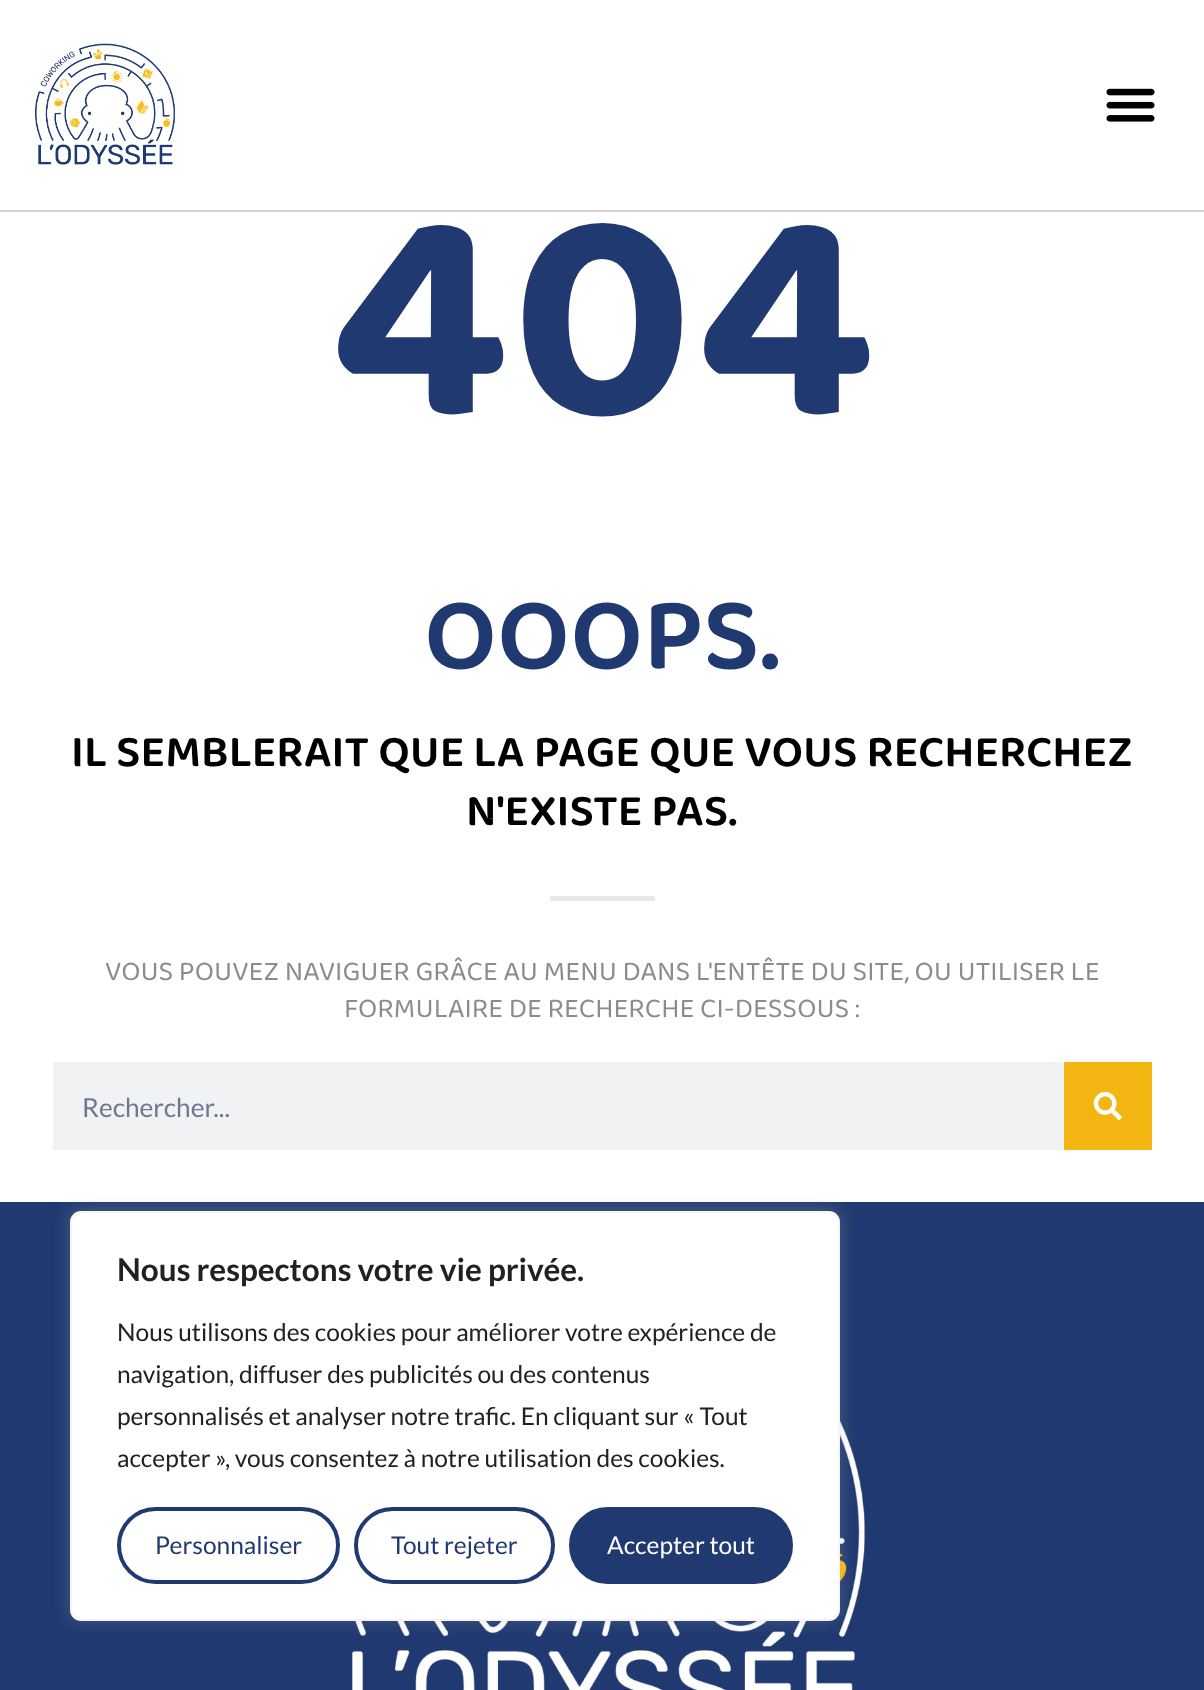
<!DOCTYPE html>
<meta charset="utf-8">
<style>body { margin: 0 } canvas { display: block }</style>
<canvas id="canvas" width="1204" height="1690"></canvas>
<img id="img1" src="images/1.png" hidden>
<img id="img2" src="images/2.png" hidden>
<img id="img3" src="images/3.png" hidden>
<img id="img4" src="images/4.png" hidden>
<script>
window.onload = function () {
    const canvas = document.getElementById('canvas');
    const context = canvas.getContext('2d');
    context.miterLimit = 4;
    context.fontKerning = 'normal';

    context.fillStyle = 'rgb(255, 255, 255)';
    context.fillRect(0, 0, 1204, 1690);
    context.fillStyle = 'rgb(211, 211, 211)';
    context.fillRect(0, 210, 1204, 2);
    context.drawImage(document.getElementById('img1'), 35, 43, 140, 122);
    context.drawImage(document.getElementById('img2'), 1106, 88, 49, 34);
    context.fillStyle = 'rgb(232, 232, 232)';
    context.fillRect(550, 896, 105, 5);
    context.fillStyle = 'rgb(241, 242, 243)';
    context.fillRect(53, 1062, 1011, 88);
    context.fillStyle = 'rgb(243, 181, 17)';
    context.fillRect(1064, 1062, 88, 88);
    context.drawImage(document.getElementById('img3'), 1093, 1092, 29, 28);
    context.fillStyle = 'rgb(32, 58, 113)';
    context.fillRect(0, 1202, 1204, 488);
    context.drawImage(document.getElementById('img4'), 352, 1420, 513, 270);
    context.fillStyle = 'rgba(172, 171, 171, 0.3)';
    context.filter = 'blur(9px)';
    context.beginPath();
    context.roundRect(70, 1209, 770, 410, 11);
    context.fill();
    context.filter = 'none';
    context.fillStyle = 'rgb(255, 255, 255)';
    context.beginPath();
    context.roundRect(71, 1212, 768, 408, 10);
    context.fill();
    context.strokeStyle = 'rgb(244, 244, 244)';
    context.lineWidth = 2;
    context.stroke();
    context.beginPath();
    context.roundRect(119, 1509, 219, 73, 36.5);
    context.strokeStyle = 'rgb(32, 58, 113)';
    context.lineWidth = 4;
    context.stroke();
    context.beginPath();
    context.roundRect(356, 1509, 197, 73, 36.5);
    context.stroke();
    context.fillStyle = 'rgb(32, 58, 113)';
    context.beginPath();
    context.roundRect(571, 1509, 220, 73, 36.5);
    context.fill();
    context.stroke();
    context.font = 'bold 304px "Baloo 2"';
    context.fillText('404', 329, 412);
    context.font = '600 105px "Baloo 2"';
    context.fillText('OOOPS.', 424, 668);
    context.font = '600 45.5px "Baloo 2"';
    context.fillStyle = 'rgb(0, 0, 0)';
    context.fillText('IL SEMBLERAIT QUE LA PAGE QUE VOUS RECHERCHEZ', 71, 766);
    context.fillText('N\'EXISTE PAS.', 466, 825);
    context.font = '28px "Baloo 2"';
    context.fillStyle = 'rgb(140, 140, 140)';
    context.fillText('VOUS POUVEZ NAVIGUER GRÂCE AU MENU DANS L\'ENTÊTE DU SITE, OU UTILISER LE', 105, 980);
    context.fillText('FORMULAIRE DE RECHERCHE CI-DESSOUS :', 344, 1017);
    context.font = '26.25px Lato';
    context.fillStyle = 'rgb(111, 119, 146)';
    context.fillText('Rechercher...', 82, 1117);
    context.font = 'bold 31.5px Lato';
    context.fillStyle = 'rgb(33, 33, 33)';
    context.fillText('Nous respectons votre vie privée.', 117, 1281);
    context.font = '24.5px Lato';
    context.fillText('Nous utilisons des cookies pour améliorer votre expérience de', 117, 1341);
    context.fillText('navigation, diffuser des publicités ou des contenus', 117, 1383);
    context.fillText('personnalisés et analyser notre trafic. En cliquant sur « Tout', 117, 1425);
    context.fillText('accepter », vous consentez à notre utilisation des cookies.', 117, 1467);
    context.fillStyle = 'rgb(32, 58, 113)';
    context.fillText('Personnaliser', 155, 1554);
    context.fillText('Tout rejeter', 391, 1554);
    context.fillStyle = 'rgb(255, 255, 255)';
    context.fillText('Accepter tout', 607, 1554);
};
</script>
